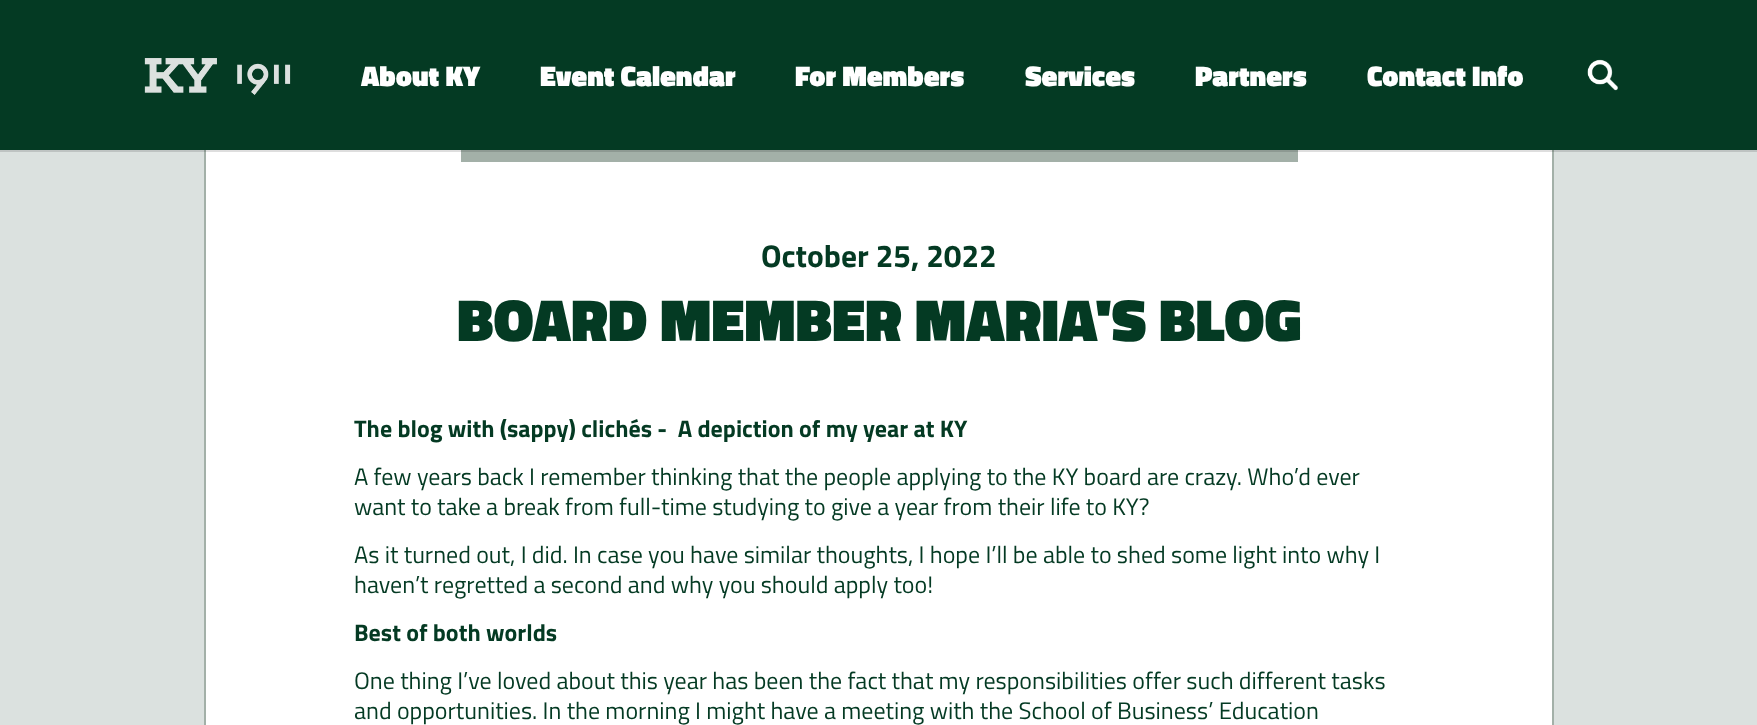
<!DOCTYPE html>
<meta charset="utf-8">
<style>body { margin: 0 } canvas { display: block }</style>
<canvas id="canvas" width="1757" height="725"></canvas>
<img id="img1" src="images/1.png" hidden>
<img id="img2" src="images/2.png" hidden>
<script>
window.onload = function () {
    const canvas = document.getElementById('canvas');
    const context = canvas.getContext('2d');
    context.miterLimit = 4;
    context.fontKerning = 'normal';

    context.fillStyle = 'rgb(219, 225, 223)';
    context.fillRect(0, 0, 1757, 725);
    context.fillStyle = 'rgb(255, 255, 255)';
    context.fillRect(206, 150, 1346, 575);
    context.strokeStyle = 'rgb(163, 176, 168)';
    context.lineWidth = 2;
    context.strokeRect(205, -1, 1348, 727);
    context.lineWidth = 60;
    context.strokeRect(491, -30, 777, 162);
    context.fillStyle = 'rgba(0, 0, 0, 0.13)';
    context.fillRect(0, 150, 1757, 2);
    context.fillStyle = 'rgb(4, 58, 35)';
    context.fillRect(0, 0, 1757, 150);
    context.drawImage(document.getElementById('img1'), 144, 58, 147, 37);
    context.drawImage(document.getElementById('img2'), 1587, 59, 31, 32);
    context.font = '900 28.75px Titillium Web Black';
    context.fillStyle = 'rgb(255, 255, 255)';
    context.fillText('About KY', 361, 86);
    context.fillText('Event Calendar', 540, 86);
    context.fillText('For Members', 795, 86);
    context.fillText('Services', 1025, 86);
    context.fillText('Partners', 1195, 86);
    context.fillText('Contact Info', 1367, 86);
    context.font = 'bold 31.5px Titillium Web';
    context.fillStyle = 'rgb(4, 58, 35)';
    context.fillText('October 25, 2022', 761, 267);
    context.font = '900 60px Titillium Web Black';
    context.fillText('BOARD MEMBER MARIA\'S BLOG', 457, 341);
    context.font = 'bold 24px Titillium Web';
    context.fillText('The blog with (sappy) clichés -  A depiction of my year at KY', 354, 437);
    context.font = '24px Titillium Web';
    context.fillText('A few years back I remember thinking that the people applying to the KY board are crazy. Who’d ever', 354, 485);
    context.fillText('want to take a break from full-time studying to give a year from their life to KY?', 354, 515);
    context.fillText('As it turned out, I did. In case you have similar thoughts, I hope I’ll be able to shed some light into why I', 354, 563);
    context.fillText('haven’t regretted a second and why you should apply too!', 354, 593);
    context.font = 'bold 24px Titillium Web';
    context.fillText('Best of both worlds', 354, 641);
    context.font = '24px Titillium Web';
    context.fillText('One thing I’ve loved about this year has been the fact that my responsibilities offer such different tasks', 354, 689);
    context.fillText('and opportunities. In the morning I might have a meeting with the School of Business’ Education', 354, 719);
};
</script>
